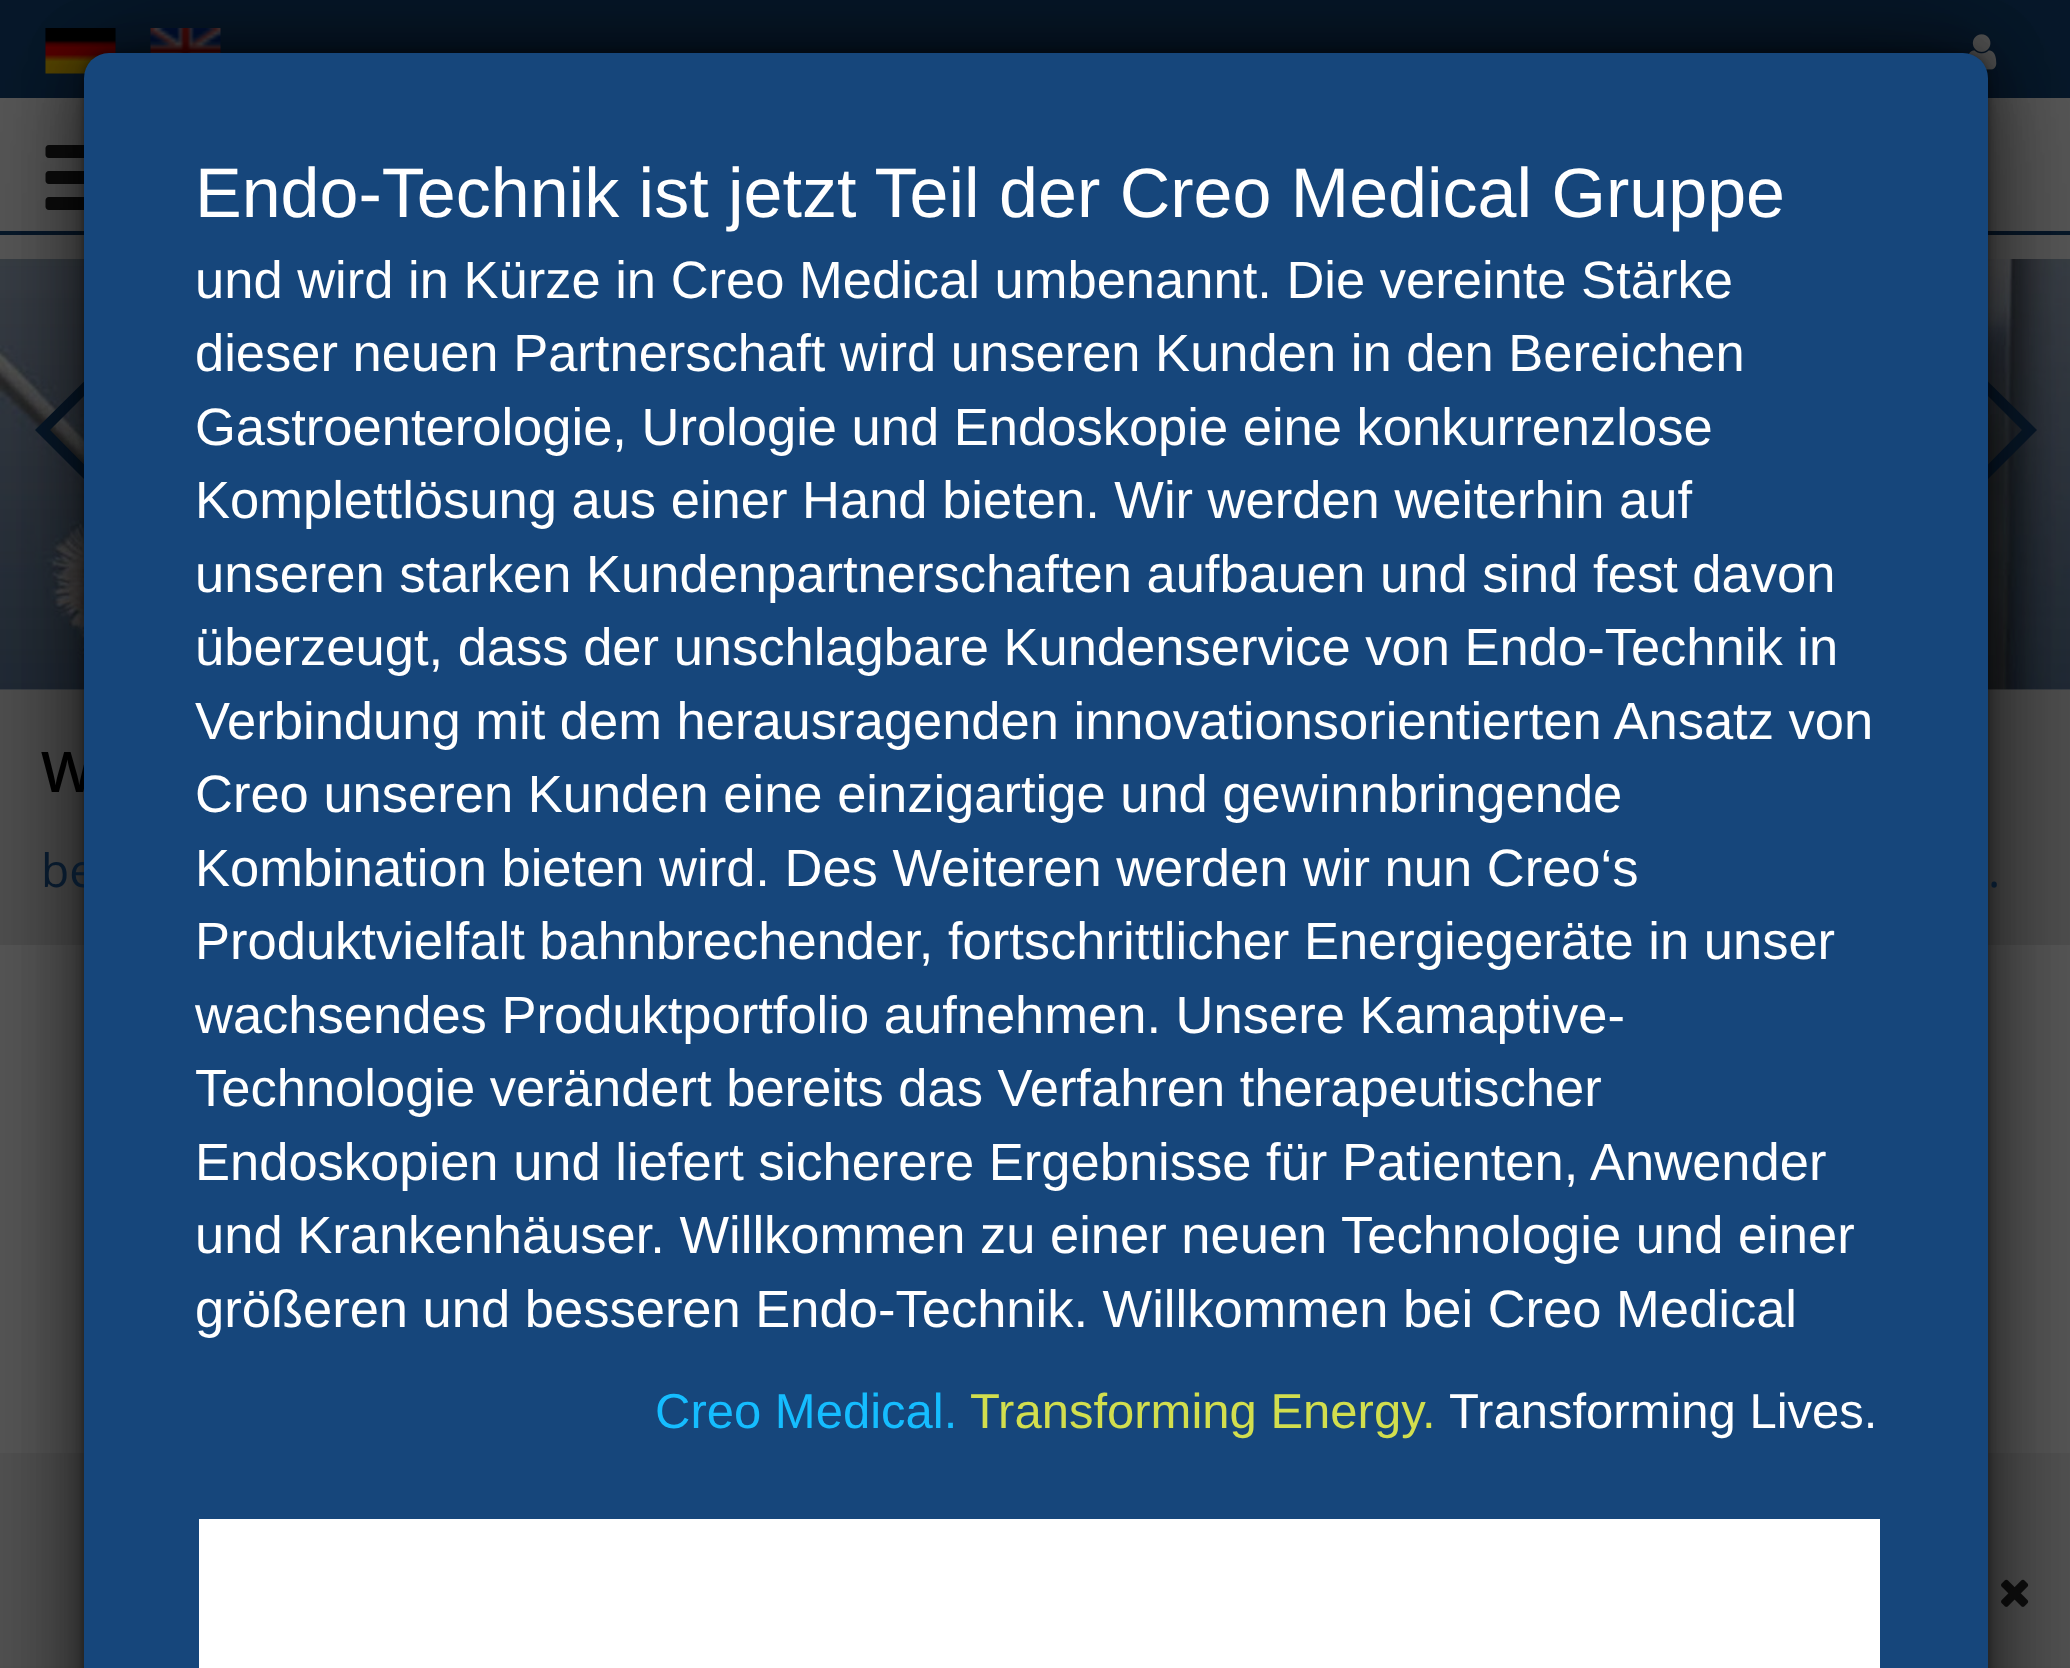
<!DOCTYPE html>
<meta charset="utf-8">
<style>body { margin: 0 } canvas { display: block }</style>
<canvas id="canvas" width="2070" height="1668"></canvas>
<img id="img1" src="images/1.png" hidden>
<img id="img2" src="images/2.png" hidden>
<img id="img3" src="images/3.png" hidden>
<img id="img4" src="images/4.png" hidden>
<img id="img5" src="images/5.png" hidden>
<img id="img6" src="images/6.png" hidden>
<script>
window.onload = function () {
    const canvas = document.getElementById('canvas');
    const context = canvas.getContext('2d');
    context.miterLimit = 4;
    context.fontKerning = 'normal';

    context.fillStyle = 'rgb(89, 89, 89)';
    context.fillRect(0, 0, 2070, 1668);
    context.fillStyle = 'rgb(84, 84, 84)';
    context.fillRect(0, 1453, 2070, 213);
    context.fillStyle = 'rgb(83, 83, 83)';
    context.fillRect(0, 1666, 2070, 2);
    context.fillStyle = 'rgb(8, 25, 43)';
    context.fillRect(0, 0, 2070, 98);
    context.drawImage(document.getElementById('img1'), 45, 28, 71, 46);
    context.drawImage(document.getElementById('img2'), 150, 28, 71, 25);
    context.drawImage(document.getElementById('img3'), 1968, 34, 29, 36);
    context.fillRect(0, 231, 2070, 4);
    context.drawImage(document.getElementById('img4'), 45, 145, 39, 65);
    context.drawImage(document.getElementById('img5'), 0, 259, 2070, 431);
    context.beginPath();
    context.moveTo(35, 430);
    context.lineTo(112, 354);
    context.lineTo(119, 361);
    context.lineTo(50, 430);
    context.lineTo(119, 500);
    context.lineTo(112, 507);
    context.closePath();
    context.fill();
    context.beginPath();
    context.moveTo(2037, 430);
    context.lineTo(1960, 507);
    context.lineTo(1953, 500);
    context.lineTo(2022, 430);
    context.lineTo(1953, 361);
    context.lineTo(1960, 354);
    context.closePath();
    context.fill();
    context.fillStyle = 'rgb(81, 81, 81)';
    context.fillRect(0, 690, 2070, 255);
    context.drawImage(document.getElementById('img6'), 2001, 1579, 28, 28);
    context.fillStyle = 'rgba(0, 0, 0, 0.2)';
    context.filter = 'blur(84px)';
    context.beginPath();
    context.roundRect(84, 53, 1904, 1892, 25);
    context.fill();
    context.filter = 'none';
    context.fillStyle = 'rgba(0, 0, 0, 0.4)';
    context.filter = 'blur(56px)';
    context.beginPath();
    context.roundRect(84, 53, 1904, 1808, 25);
    context.fill();
    context.filter = 'none';
    context.filter = 'blur(28px)';
    context.beginPath();
    context.roundRect(84, 53, 1904, 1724, 25);
    context.fill();
    context.filter = 'none';
    context.filter = 'blur(5px)';
    context.beginPath();
    context.roundRect(84, 53, 1904, 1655, 25);
    context.fill();
    context.filter = 'none';
    context.font = '600 56px Open Sans';
    context.fillStyle = 'rgb(0, 0, 0)';
    context.fillText('W', 41, 792);
    context.font = '46px Open Sans';
    context.fillStyle = 'rgb(8, 25, 43)';
    context.fillText('be', 41, 887);
    context.fillStyle = 'rgb(22, 70, 123)';
    context.beginPath();
    context.roundRect(84, 53, 1904, 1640, 25);
    context.fill();
    context.fillStyle = 'rgb(255, 255, 255)';
    context.fillRect(199, 1519, 1681, 149);
    context.font = '49px Liberation Sans';
    context.fillText('Transforming Lives.', 1449, 1428);
    context.fillStyle = 'rgb(210, 222, 78)';
    context.fillText('Transforming Energy.', 970, 1428);
    context.fillStyle = 'rgb(21, 189, 255)';
    context.fillText('Creo Medical.', 655, 1428);
    context.font = '52.5px Liberation Sans';
    context.fillStyle = 'rgb(255, 255, 255)';
    context.fillText('größeren und besseren Endo-Technik. Willkommen bei Creo Medical', 195, 1327);
    context.fillText('und Krankenhäuser. Willkommen zu einer neuen Technologie und einer', 195, 1253);
    context.fillText('Endoskopien und liefert sicherere Ergebnisse für Patienten, Anwender', 195, 1180);
    context.fillText('Technologie verändert bereits das Verfahren therapeutischer', 195, 1106);
    context.fillText('wachsendes Produktportfolio aufnehmen. Unsere Kamaptive-', 195, 1033);
    context.fillText('Produktvielfalt bahnbrechender, fortschrittlicher Energiegeräte in unser', 195, 959);
    context.fillText('Kombination bieten wird. Des Weiteren werden wir nun Creo‘s', 195, 886);
    context.fillText('Creo unseren Kunden eine einzigartige und gewinnbringende', 195, 812);
    context.fillText('Verbindung mit dem herausragenden innovationsorientierten Ansatz von', 195, 739);
    context.fillText('überzeugt, dass der unschlagbare Kundenservice von Endo-Technik in', 195, 665);
    context.fillText('unseren starken Kundenpartnerschaften aufbauen und sind fest davon', 195, 592);
    context.fillText('Komplettlösung aus einer Hand bieten. Wir werden weiterhin auf', 195, 518);
    context.fillText('Gastroenterologie, Urologie und Endoskopie eine konkurrenzlose', 195, 445);
    context.fillText('dieser neuen Partnerschaft wird unseren Kunden in den Bereichen', 195, 371);
    context.fillText('und wird in Kürze in Creo Medical umbenannt. Die vereinte Stärke', 195, 298);
    context.font = '70px Liberation Sans';
    context.fillText('Endo-Technik ist jetzt Teil der Creo Medical Gruppe', 195, 217);
    context.font = '46px Open Sans';
    context.fillStyle = 'rgb(8, 25, 43)';
    context.fillText('.', 1988, 887);
};
</script>
